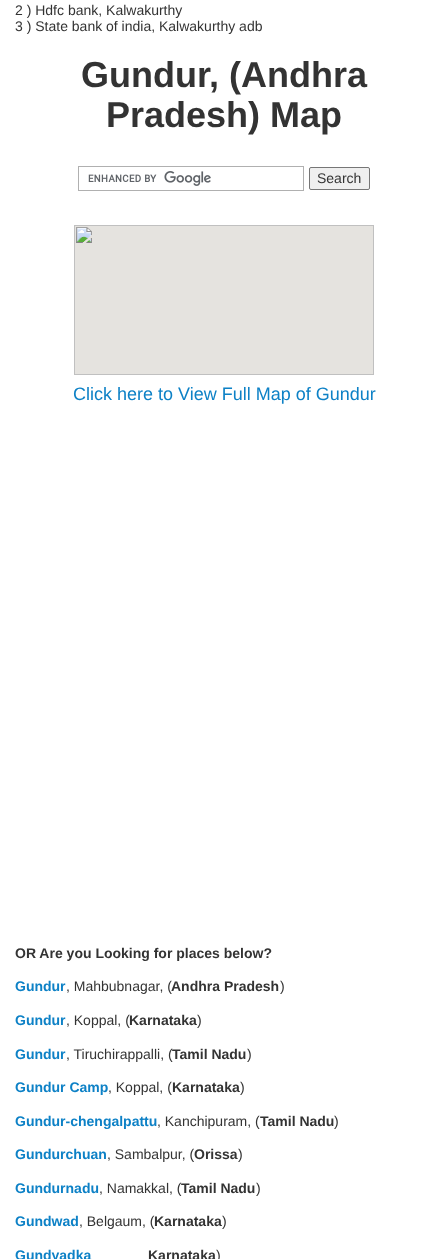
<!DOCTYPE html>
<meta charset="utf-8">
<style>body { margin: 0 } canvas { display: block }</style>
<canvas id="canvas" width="448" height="1259"></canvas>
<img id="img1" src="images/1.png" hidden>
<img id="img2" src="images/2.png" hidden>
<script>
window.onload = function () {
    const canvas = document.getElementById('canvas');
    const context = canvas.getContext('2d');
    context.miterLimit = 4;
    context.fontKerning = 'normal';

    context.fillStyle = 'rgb(255, 255, 255)';
    context.fillRect(0, 0, 448, 1259);
    context.drawImage(document.getElementById('img1'), 88, 171, 123, 15);
    context.strokeStyle = 'rgb(176, 176, 176)';
    context.strokeRect(78.5, 166.5, 225, 24);
    context.fillStyle = 'rgb(239, 239, 239)';
    context.beginPath();
    context.roundRect(309.5, 167.5, 60, 22, 1.5);
    context.fill();
    context.strokeStyle = 'rgb(118, 118, 118)';
    context.stroke();
    context.drawImage(document.getElementById('img2'), 74, 225, 300, 150);
    context.font = '14px Liberation Sans';
    context.fillStyle = 'rgb(51, 51, 51)';
    context.fillText('2 ) Hdfc bank, Kalwakurthy', 15, 15);
    context.fillText('3 ) State bank of india, Kalwakurthy adb', 15, 31);
    context.font = 'bold 36px Liberation Sans';
    context.fillText('Gundur, (Andhra', 81, 87);
    context.fillText('Pradesh) Map', 106, 127);
    context.font = '14px Liberation Sans';
    context.fillText('Search', 317, 183);
    context.font = '18px Liberation Sans';
    context.fillStyle = 'rgb(13, 129, 198)';
    context.fillText('Click here to View Full Map of Gundur', 73, 400);
    context.font = 'bold 14px Liberation Sans';
    context.fillStyle = 'rgb(51, 51, 51)';
    context.fillText('OR Are you Looking for places below?', 15, 958);
    context.fillStyle = 'rgb(13, 129, 198)';
    context.fillText('Gundur', 15, 991);
    context.font = '14px Liberation Sans';
    context.fillStyle = 'rgb(51, 51, 51)';
    context.fillText(', Mahbubnagar, (', 66, 991);
    context.font = 'bold 14px Liberation Sans';
    context.fillText('Andhra Pradesh', 171, 991);
    context.font = '14px Liberation Sans';
    context.fillText(')', 280, 991);
    context.font = 'bold 14px Liberation Sans';
    context.fillStyle = 'rgb(13, 129, 198)';
    context.fillText('Gundur', 15, 1025);
    context.font = '14px Liberation Sans';
    context.fillStyle = 'rgb(51, 51, 51)';
    context.fillText(', Koppal, (', 66, 1025);
    context.font = 'bold 14px Liberation Sans';
    context.fillText('Karnataka', 129, 1025);
    context.font = '14px Liberation Sans';
    context.fillText(')', 197, 1025);
    context.font = 'bold 14px Liberation Sans';
    context.fillStyle = 'rgb(13, 129, 198)';
    context.fillText('Gundur', 15, 1059);
    context.font = '14px Liberation Sans';
    context.fillStyle = 'rgb(51, 51, 51)';
    context.fillText(', Tiruchirappalli, (', 66, 1059);
    context.font = 'bold 14px Liberation Sans';
    context.fillText('Tamil Nadu', 172, 1059);
    context.font = '14px Liberation Sans';
    context.fillText(')', 247, 1059);
    context.font = 'bold 14px Liberation Sans';
    context.fillStyle = 'rgb(13, 129, 198)';
    context.fillText('Gundur Camp', 15, 1092);
    context.font = '14px Liberation Sans';
    context.fillStyle = 'rgb(51, 51, 51)';
    context.fillText(', Koppal, (', 108, 1092);
    context.font = 'bold 14px Liberation Sans';
    context.fillText('Karnataka', 172, 1092);
    context.font = '14px Liberation Sans';
    context.fillText(')', 240, 1092);
    context.font = 'bold 14px Liberation Sans';
    context.fillStyle = 'rgb(13, 129, 198)';
    context.fillText('Gundur-chengalpattu', 15, 1126);
    context.font = '14px Liberation Sans';
    context.fillStyle = 'rgb(51, 51, 51)';
    context.fillText(', Kanchipuram, (', 157, 1126);
    context.font = 'bold 14px Liberation Sans';
    context.fillText('Tamil Nadu', 260, 1126);
    context.font = '14px Liberation Sans';
    context.fillText(')', 334, 1126);
    context.font = 'bold 14px Liberation Sans';
    context.fillStyle = 'rgb(13, 129, 198)';
    context.fillText('Gundurchuan', 15, 1159);
    context.font = '14px Liberation Sans';
    context.fillStyle = 'rgb(51, 51, 51)';
    context.fillText(', Sambalpur, (', 107, 1159);
    context.font = 'bold 14px Liberation Sans';
    context.fillText('Orissa', 194, 1159);
    context.font = '14px Liberation Sans';
    context.fillText(')', 238, 1159);
    context.font = 'bold 14px Liberation Sans';
    context.fillStyle = 'rgb(13, 129, 198)';
    context.fillText('Gundurnadu', 15, 1193);
    context.font = '14px Liberation Sans';
    context.fillStyle = 'rgb(51, 51, 51)';
    context.fillText(', Namakkal, (', 99, 1193);
    context.font = 'bold 14px Liberation Sans';
    context.fillText('Tamil Nadu', 181, 1193);
    context.font = '14px Liberation Sans';
    context.fillText(')', 256, 1193);
    context.font = 'bold 14px Liberation Sans';
    context.fillStyle = 'rgb(13, 129, 198)';
    context.fillText('Gundwad', 15, 1226);
    context.font = '14px Liberation Sans';
    context.fillStyle = 'rgb(51, 51, 51)';
    context.fillText(', Belgaum, (', 79, 1226);
    context.font = 'bold 14px Liberation Sans';
    context.fillText('Karnataka', 154, 1226);
    context.font = '14px Liberation Sans';
    context.fillText(')', 222, 1226);
    context.font = 'bold 14px Liberation Sans';
    context.fillStyle = 'rgb(13, 129, 198)';
    context.fillText('Gundyadka', 15, 1260);
    context.fillStyle = 'rgb(51, 51, 51)';
    context.fillText('Karnataka', 148, 1260);
    context.font = '14px Liberation Sans';
    context.fillText(')', 216, 1260);
};
</script>
